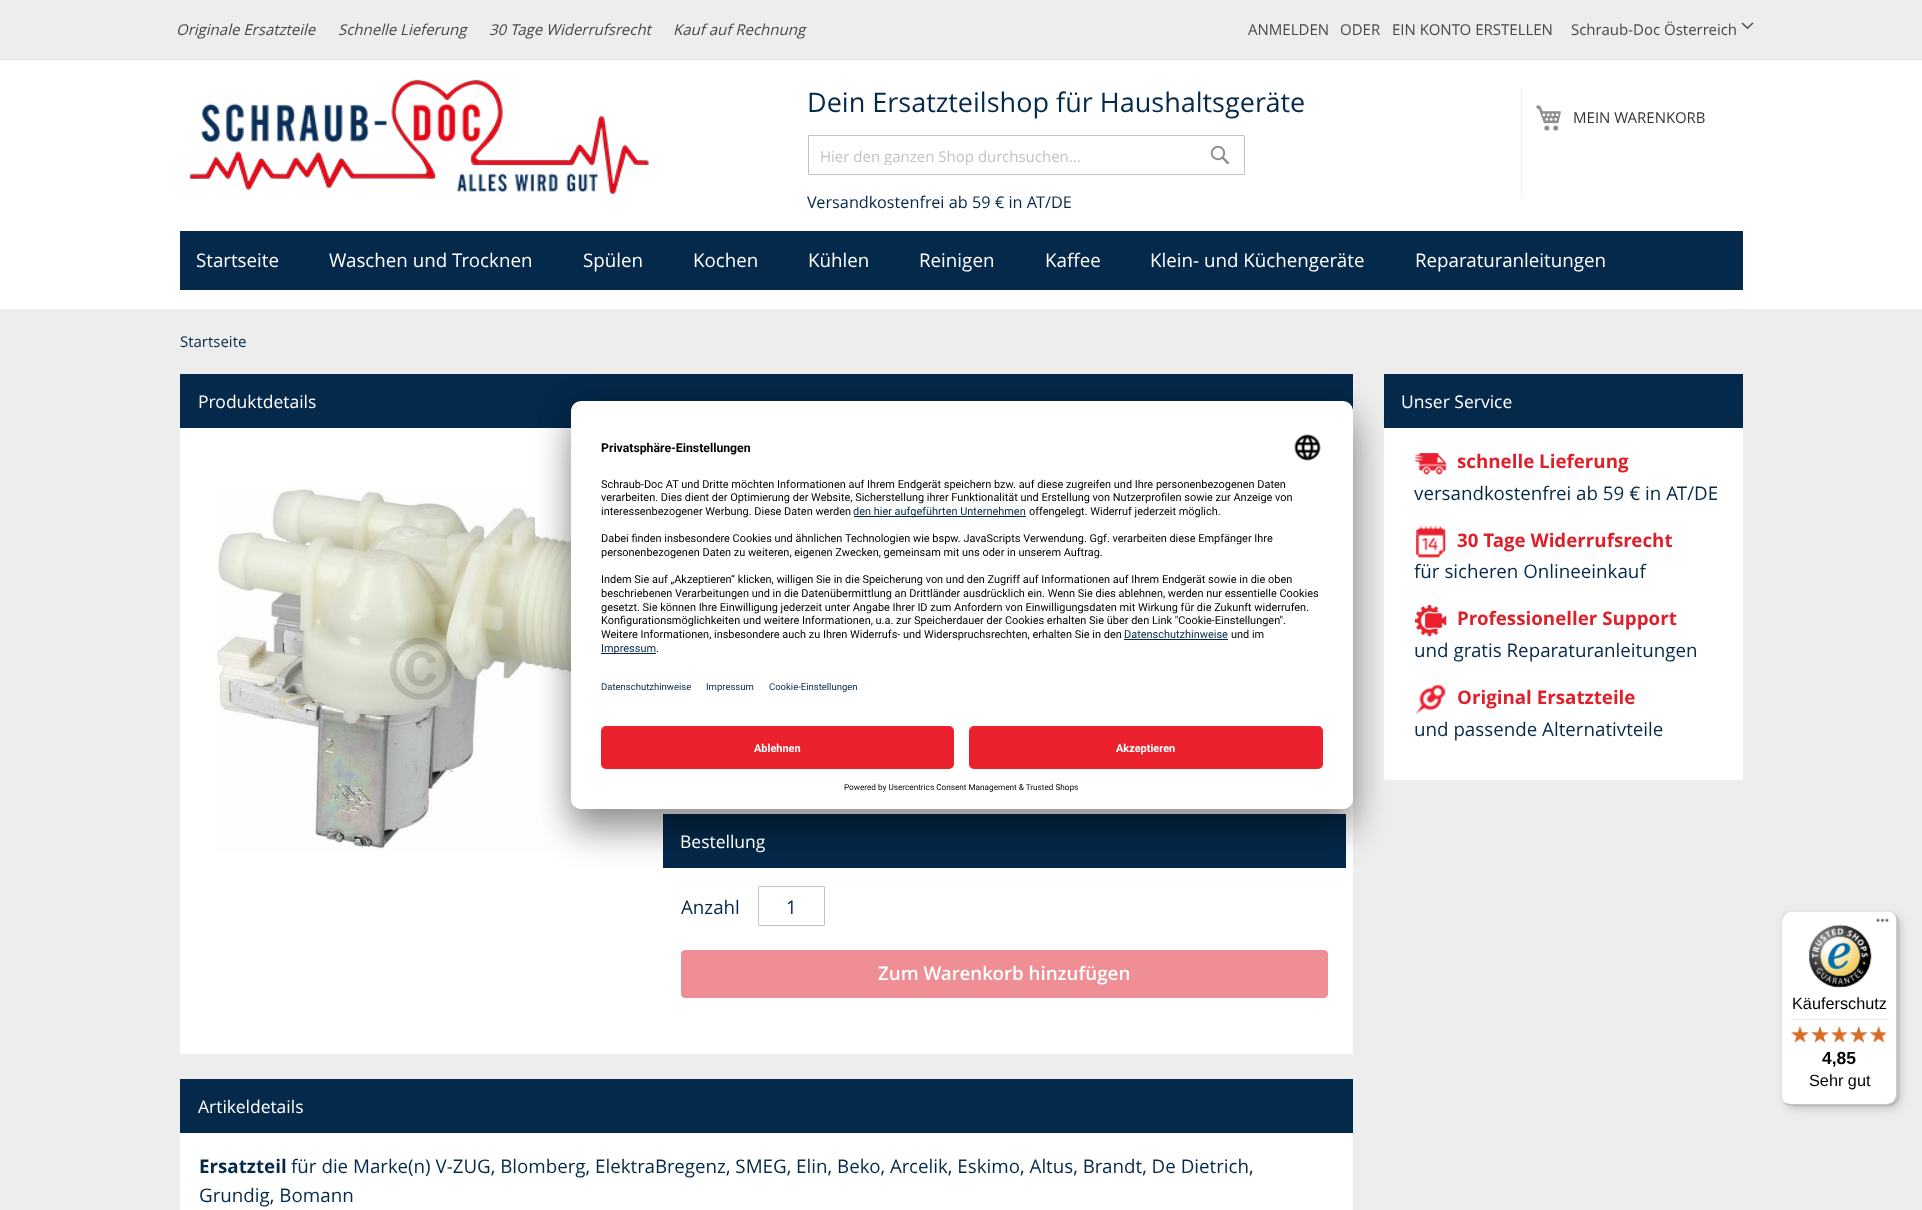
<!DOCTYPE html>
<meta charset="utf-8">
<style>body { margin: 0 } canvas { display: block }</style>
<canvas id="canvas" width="1922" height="1210"></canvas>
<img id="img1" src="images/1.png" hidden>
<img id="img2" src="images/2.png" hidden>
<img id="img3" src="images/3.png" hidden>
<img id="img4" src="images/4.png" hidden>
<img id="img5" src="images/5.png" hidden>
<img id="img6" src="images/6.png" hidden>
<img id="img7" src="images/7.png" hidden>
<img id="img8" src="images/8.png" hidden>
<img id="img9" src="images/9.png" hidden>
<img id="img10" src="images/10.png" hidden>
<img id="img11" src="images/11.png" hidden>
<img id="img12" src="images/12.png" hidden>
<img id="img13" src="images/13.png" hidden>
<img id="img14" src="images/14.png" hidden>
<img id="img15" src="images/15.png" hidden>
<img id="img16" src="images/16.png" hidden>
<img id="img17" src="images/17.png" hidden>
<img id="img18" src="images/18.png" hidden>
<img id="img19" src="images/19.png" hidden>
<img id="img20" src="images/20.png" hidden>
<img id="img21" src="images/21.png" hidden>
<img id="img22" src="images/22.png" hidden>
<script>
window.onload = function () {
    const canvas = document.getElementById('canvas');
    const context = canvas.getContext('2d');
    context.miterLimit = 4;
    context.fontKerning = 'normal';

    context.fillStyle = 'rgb(237, 237, 237)';
    context.fillRect(0, 0, 1922, 1210);
    context.fillStyle = 'rgb(255, 255, 255)';
    context.fillRect(0, 60, 1922, 249);
    context.fillStyle = 'rgb(232, 232, 232)';
    context.fillRect(0, 59, 1922, 1);
    context.drawImage(document.getElementById('img1'), 1741, 22, 13, 8);
    context.drawImage(document.getElementById('img2'), 189, 79, 460, 115);
    context.fillStyle = 'rgb(237, 237, 237)';
    context.fillRect(1521, 88, 1, 110);
    context.drawImage(document.getElementById('img3'), 1536, 105, 25, 26);
    context.beginPath();
    context.roundRect(808.5, 135.5, 436, 39, 0.5);
    context.strokeStyle = 'rgb(194, 194, 194)';
    context.stroke();
    context.drawImage(document.getElementById('img4'), 1210, 145, 20, 20);
    context.fillStyle = 'rgb(5, 41, 75)';
    context.fillRect(180, 231, 1563, 59);
    context.fillStyle = 'rgb(255, 255, 255)';
    context.fillRect(180, 428, 1173, 626);
    context.fillStyle = 'rgb(5, 41, 75)';
    context.fillRect(180, 374, 1173, 54);
    context.drawImage(document.getElementById('img5'), 216, 486, 415, 367);
    context.fillRect(663, 814, 683, 54);
    context.beginPath();
    context.roundRect(758.5, 886.5, 66, 39, 0.5);
    context.stroke();
    context.fillStyle = 'rgb(239, 143, 149)';
    context.beginPath();
    context.roundRect(681.5, 950.5, 646, 47, 3.5);
    context.fill();
    context.strokeStyle = 'rgb(239, 143, 149)';
    context.stroke();
    context.fillStyle = 'rgb(255, 255, 255)';
    context.fillRect(180, 1133, 1173, 77);
    context.fillStyle = 'rgb(5, 41, 75)';
    context.fillRect(180, 1079, 1173, 54);
    context.fillStyle = 'rgb(255, 255, 255)';
    context.fillRect(1384, 428, 359, 352);
    context.fillStyle = 'rgb(5, 41, 75)';
    context.fillRect(1384, 374, 359, 54);
    context.drawImage(document.getElementById('img6'), 1415, 452, 32, 23);
    context.drawImage(document.getElementById('img7'), 1416, 526, 30, 32);
    context.drawImage(document.getElementById('img8'), 1415, 605, 32, 32);
    context.drawImage(document.getElementById('img9'), 1416, 684, 30, 30);
    context.fillStyle = 'rgba(0, 0, 0, 0.3)';
    context.filter = 'blur(17.5px)';
    context.beginPath();
    context.roundRect(571, 426, 782, 408, 10);
    context.fill();
    context.filter = 'none';
    context.fillStyle = 'rgba(0, 0, 0, 0.22)';
    context.filter = 'blur(16px)';
    context.beginPath();
    context.roundRect(571, 408, 782, 407, 10);
    context.fill();
    context.filter = 'none';
    context.fillStyle = 'rgb(255, 255, 255)';
    context.beginPath();
    context.roundRect(571, 401, 782, 408, 10);
    context.fill();
    context.save();
    context.beginPath();
    context.roundRect(571, 401, 782, 408, 10);
    context.clip();
    context.beginPath();
    context.roundRect(571, 401, 782, 315, [10, 10, 0, 0]);
    context.clip();
    context.fillRect(571, 403, 782, 313);
    context.restore();
    context.drawImage(document.getElementById('img10'), 1294, 434, 27, 27);
    context.fillStyle = 'rgb(5, 41, 75)';
    context.fillRect(854, 516, 172, 1);
    context.fillRect(1124, 639, 104, 1);
    context.fillRect(601, 653, 55, 1);
    context.fillStyle = 'rgb(255, 255, 255)';
    context.beginPath();
    context.roundRect(571, 716, 782, 93, [0, 0, 10, 10]);
    context.fill();
    context.fillStyle = 'rgb(235, 33, 45)';
    context.beginPath();
    context.roundRect(601, 726, 353, 43, 5);
    context.fill();
    context.beginPath();
    context.roundRect(969, 726, 354, 43, 5);
    context.fill();
    context.fillStyle = 'rgba(0, 0, 0, 0.15)';
    context.filter = 'blur(5px)';
    context.beginPath();
    context.roundRect(1785, 915, 116, 194, 10);
    context.fill();
    context.filter = 'none';
    context.filter = 'blur(1px)';
    context.beginPath();
    context.roundRect(1783, 913, 116, 193, 10);
    context.fill();
    context.filter = 'none';
    context.fillStyle = 'rgb(255, 255, 255)';
    context.beginPath();
    context.roundRect(1781, 911, 117, 194, 10);
    context.fill();
    context.fillStyle = 'rgba(0, 0, 0, 0.1)';
    context.beginPath();
    context.moveTo(1792, 912);
    context.lineTo(1889, 912);
    context.bezierCurveTo(1892, 912, 1895, 914, 1897, 916);
    context.bezierCurveTo(1895, 913, 1892, 911, 1888, 911);
    context.lineTo(1791, 911);
    context.bezierCurveTo(1785, 911, 1781, 915, 1781, 921);
    context.lineTo(1781, 1095);
    context.bezierCurveTo(1781, 1098, 1782, 1101, 1784, 1103);
    context.bezierCurveTo(1783, 1101, 1782, 1099, 1782, 1096);
    context.lineTo(1782, 922);
    context.bezierCurveTo(1782, 917, 1787, 912, 1792, 912);
    context.closePath();
    context.fill();
    context.fillStyle = 'rgba(0, 0, 0, 0.2)';
    context.beginPath();
    context.moveTo(1783, 1102);
    context.bezierCurveTo(1785, 1104, 1788, 1105, 1791, 1105);
    context.lineTo(1888, 1105);
    context.bezierCurveTo(1894, 1105, 1898, 1101, 1898, 1095);
    context.lineTo(1898, 921);
    context.bezierCurveTo(1898, 917, 1896, 914, 1892, 912);
    context.bezierCurveTo(1895, 914, 1896, 917, 1896, 920);
    context.lineTo(1896, 1094);
    context.bezierCurveTo(1896, 1099, 1892, 1104, 1886, 1104);
    context.lineTo(1790, 1104);
    context.bezierCurveTo(1787, 1104, 1785, 1103, 1783, 1102);
    context.closePath();
    context.fill();
    context.fillStyle = 'rgba(50, 50, 50, 0.2)';
    context.beginPath();
    context.moveTo(1783, 1101);
    context.bezierCurveTo(1785, 1104, 1788, 1105, 1791, 1105);
    context.lineTo(1888, 1105);
    context.bezierCurveTo(1894, 1105, 1898, 1101, 1898, 1095);
    context.lineTo(1898, 921);
    context.bezierCurveTo(1898, 917, 1896, 914, 1893, 912);
    context.bezierCurveTo(1895, 914, 1897, 917, 1897, 920);
    context.lineTo(1897, 1094);
    context.bezierCurveTo(1897, 1100, 1892, 1104, 1887, 1104);
    context.lineTo(1790, 1104);
    context.bezierCurveTo(1788, 1104, 1785, 1103, 1783, 1101);
    context.closePath();
    context.fill();
    context.fillStyle = 'rgba(255, 255, 255, 0.3)';
    context.beginPath();
    context.moveTo(1897, 921);
    context.bezierCurveTo(1897, 915, 1892, 911, 1887, 911);
    context.lineTo(1888, 911);
    context.bezierCurveTo(1894, 911, 1898, 915, 1898, 921);
    context.lineTo(1898, 1095);
    context.bezierCurveTo(1898, 1101, 1894, 1105, 1888, 1105);
    context.lineTo(1791, 1105);
    context.bezierCurveTo(1785, 1105, 1781, 1101, 1781, 1095);
    context.lineTo(1781, 1094);
    context.bezierCurveTo(1781, 1100, 1785, 1104, 1791, 1104);
    context.lineTo(1887, 1104);
    context.bezierCurveTo(1892, 1104, 1897, 1100, 1897, 1094);
    context.closePath();
    context.fill();
    context.drawImage(document.getElementById('img11'), 1876, 918, 13, 4);
    context.drawImage(document.getElementById('img12'), 1809, 924, 63, 64);
    context.fillStyle = 'rgb(229, 229, 229)';
    context.fillRect(1791, 1019, 97, 1);
    context.drawImage(document.getElementById('img13'), 1791, 1026, 18, 16);
    context.drawImage(document.getElementById('img14'), 1812, 1026, 16, 17);
    context.drawImage(document.getElementById('img15'), 1831, 1026, 16, 16);
    context.drawImage(document.getElementById('img16'), 1850, 1026, 17, 17);
    context.drawImage(document.getElementById('img17'), 1870, 1026, 17, 17);
    context.drawImage(document.getElementById('img18'), 1791, 1026, 18, 17);
    context.drawImage(document.getElementById('img19'), 1811, 1026, 18, 17);
    context.drawImage(document.getElementById('img20'), 1831, 1026, 17, 17);
    context.drawImage(document.getElementById('img21'), 1850, 1026, 17, 17);
    context.drawImage(document.getElementById('img22'), 1870, 1026, 15, 17);
    context.font = 'italic 15px Open Sans';
    context.fillStyle = 'rgb(71, 71, 71)';
    context.fillText('Originale Ersatzteile', 176, 35);
    context.fillText('Schnelle Lieferung', 338, 35);
    context.fillText('30 Tage Widerrufsrecht', 489, 35);
    context.fillText('Kauf auf Rechnung', 673, 35);
    context.font = '15px Open Sans';
    context.fillText('ANMELDEN', 1248, 35);
    context.fillText('ODER', 1340, 35);
    context.fillText('EIN KONTO ERSTELLEN', 1392, 35);
    context.fillText('Schraub-Doc Österreich', 1571, 35);
    context.font = '27px Open Sans';
    context.fillStyle = 'rgb(5, 41, 75)';
    context.fillText('Dein Ersatzteilshop für Haushaltsgeräte', 807, 112);
    context.font = '15px Open Sans';
    context.fillStyle = 'rgb(51, 51, 51)';
    context.fillText('MEIN WARENKORB', 1573, 123);
    context.save();
    context.beginPath();
    context.rect(820, 145, 380, 20);
    context.clip();
    context.fillStyle = 'rgb(194, 194, 194)';
    context.fillText('Hier den ganzen Shop durchsuchen...', 820, 162);
    context.restore();
    context.font = '16.25px Open Sans';
    context.fillStyle = 'rgb(5, 41, 75)';
    context.fillText('Versandkostenfrei ab 59 € in AT/DE', 807, 208);
    context.font = '18.75px Open Sans';
    context.fillStyle = 'rgb(255, 255, 255)';
    context.fillText('Startseite', 196, 267);
    context.fillText('Waschen und Trocknen', 329, 267);
    context.fillText('Spülen', 583, 267);
    context.fillText('Kochen', 693, 267);
    context.fillText('Kühlen', 808, 267);
    context.fillText('Reinigen', 919, 267);
    context.fillText('Kaffee', 1045, 267);
    context.fillText('Klein- und Küchengeräte', 1150, 267);
    context.fillText('Reparaturanleitungen', 1415, 267);
    context.font = '15px Open Sans';
    context.fillStyle = 'rgb(5, 41, 75)';
    context.fillText('Startseite', 180, 347);
    context.font = '17.5px Open Sans';
    context.fillStyle = 'rgb(255, 255, 255)';
    context.fillText('Produktdetails', 198, 408);
    context.fillText('Bestellung', 680, 848);
    context.font = '18.75px Open Sans';
    context.fillStyle = 'rgb(5, 41, 75)';
    context.fillText('Anzahl', 681, 914);
    context.fillText('1', 786, 914);
    context.font = '600 18.75px Open Sans';
    context.fillStyle = 'rgb(255, 255, 255)';
    context.fillText('Zum Warenkorb hinzufügen', 878, 980);
    context.font = '17.5px Open Sans';
    context.fillText('Artikeldetails', 198, 1113);
    context.font = 'bold 18.75px Open Sans';
    context.fillStyle = 'rgb(5, 41, 75)';
    context.fillText('Ersatzteil', 199, 1173);
    context.font = '18.75px Open Sans';
    context.fillText('für die Marke(n) V-ZUG, Blomberg, ElektraBregenz, SMEG, Elin, Beko, Arcelik, Eskimo, Altus, Brandt, De Dietrich,', 291, 1173);
    context.fillText('Grundig, Bomann', 199, 1202);
    context.font = '17.5px Open Sans';
    context.fillStyle = 'rgb(255, 255, 255)';
    context.fillText('Unser Service', 1401, 408);
    context.font = 'bold 18.75px Open Sans';
    context.fillStyle = 'rgb(223, 31, 42)';
    context.fillText('schnelle Lieferung', 1457, 468);
    context.font = '18.75px Open Sans';
    context.fillStyle = 'rgb(5, 41, 75)';
    context.fillText('versandkostenfrei ab 59 € in AT/DE', 1414, 500);
    context.font = 'bold 18.75px Open Sans';
    context.fillStyle = 'rgb(223, 31, 42)';
    context.fillText('30 Tage Widerrufsrecht', 1457, 547);
    context.font = '18.75px Open Sans';
    context.fillStyle = 'rgb(5, 41, 75)';
    context.fillText('für sicheren Onlineeinkauf', 1414, 578);
    context.font = 'bold 18.75px Open Sans';
    context.fillStyle = 'rgb(223, 31, 42)';
    context.fillText('Professioneller Support', 1457, 625);
    context.font = '18.75px Open Sans';
    context.fillStyle = 'rgb(5, 41, 75)';
    context.fillText('und gratis Reparaturanleitungen', 1414, 657);
    context.font = 'bold 18.75px Open Sans';
    context.fillStyle = 'rgb(223, 31, 42)';
    context.fillText('Original Ersatzteile', 1457, 704);
    context.font = '18.75px Open Sans';
    context.fillStyle = 'rgb(5, 41, 75)';
    context.fillText('und passende Alternativteile', 1414, 736);
    context.font = 'bold 12.25px Roboto';
    context.fillStyle = 'rgb(0, 0, 0)';
    context.fillText('Privatsphäre-Einstellungen', 601, 452);
    context.font = '10.95px Roboto';
    context.fillText('Schraub-Doc AT und Dritte möchten Informationen auf Ihrem Endgerät speichern bzw. auf diese zugreifen und Ihre personenbezogenen Daten', 601, 488);
    context.fillText('verarbeiten. Dies dient der Optimierung der Website, Sicherstellung ihrer Funktionalität und Erstellung von Nutzerprofilen sowie zur Anzeige von', 601, 501);
    context.fillText('interessenbezogener Werbung. Diese Daten werden', 601, 515);
    context.fillStyle = 'rgb(5, 41, 75)';
    context.fillText('den hier aufgeführten Unternehmen', 853, 515);
    context.fillStyle = 'rgb(0, 0, 0)';
    context.fillText('offengelegt. Widerruf jederzeit möglich.', 1029, 515);
    context.fillText('Dabei finden insbesondere Cookies und ähnlichen Technologien wie bspw. JavaScripts Verwendung. Ggf. verarbeiten diese Empfänger Ihre', 601, 542);
    context.fillText('personenbezogenen Daten zu weiteren, eigenen Zwecken, gemeinsam mit uns oder in unserem Auftrag.', 601, 556);
    context.fillText('Indem Sie auf „Akzeptieren“ klicken, willigen Sie in die Speicherung von und den Zugriff auf Informationen auf Ihrem Endgerät sowie in die oben', 601, 583);
    context.fillText('beschriebenen Verarbeitungen und in die Datenübermittlung an Drittländer ausdrücklich ein. Wenn Sie dies ablehnen, werden nur essentielle Cookies', 601, 597);
    context.fillText('gesetzt. Sie können Ihre Einwilligung jederzeit unter Angabe Ihrer ID zum Anfordern von Einwilligungsdaten mit Wirkung für die Zukunft widerrufen.', 601, 611);
    context.fillText('Konfigurationsmöglichkeiten und weitere Informationen, u.a. zur Speicherdauer der Cookies erhalten Sie über den Link "Cookie-Einstellungen".', 601, 624);
    context.fillText('Weitere Informationen, insbesondere auch zu Ihren Widerrufs- und Widerspruchsrechten, erhalten Sie in den', 601, 638);
    context.fillStyle = 'rgb(5, 41, 75)';
    context.fillText('Datenschutzhinweise', 1124, 638);
    context.fillStyle = 'rgb(0, 0, 0)';
    context.fillText('und im', 1231, 638);
    context.fillStyle = 'rgb(5, 41, 75)';
    context.fillText('Impressum', 601, 652);
    context.fillStyle = 'rgb(0, 0, 0)';
    context.fillText('.', 656, 652);
    context.font = '9.5px Roboto';
    context.fillStyle = 'rgb(5, 41, 75)';
    context.fillText('Datenschutzhinweise', 601, 690);
    context.fillText('Impressum', 706, 690);
    context.fillText('Cookie-Einstellungen', 769, 690);
    context.font = 'bold 10.95px Roboto';
    context.fillStyle = 'rgb(255, 255, 255)';
    context.fillText('Ablehnen', 754, 752);
    context.fillText('Akzeptieren', 1116, 752);
    context.font = '8.2px Roboto';
    context.fillStyle = 'rgb(0, 0, 0)';
    context.fillText('Powered by Usercentrics Consent Management & Trusted Shops', 844, 790);
    context.font = '16.25px Liberation Sans';
    context.fillText('Käuferschutz', 1792, 1009);
    context.font = 'bold 17.5px Liberation Sans';
    context.fillText('4,85', 1822, 1064);
    context.font = '16.25px Liberation Sans';
    context.fillText('Sehr gut', 1809, 1086);
};
</script>
